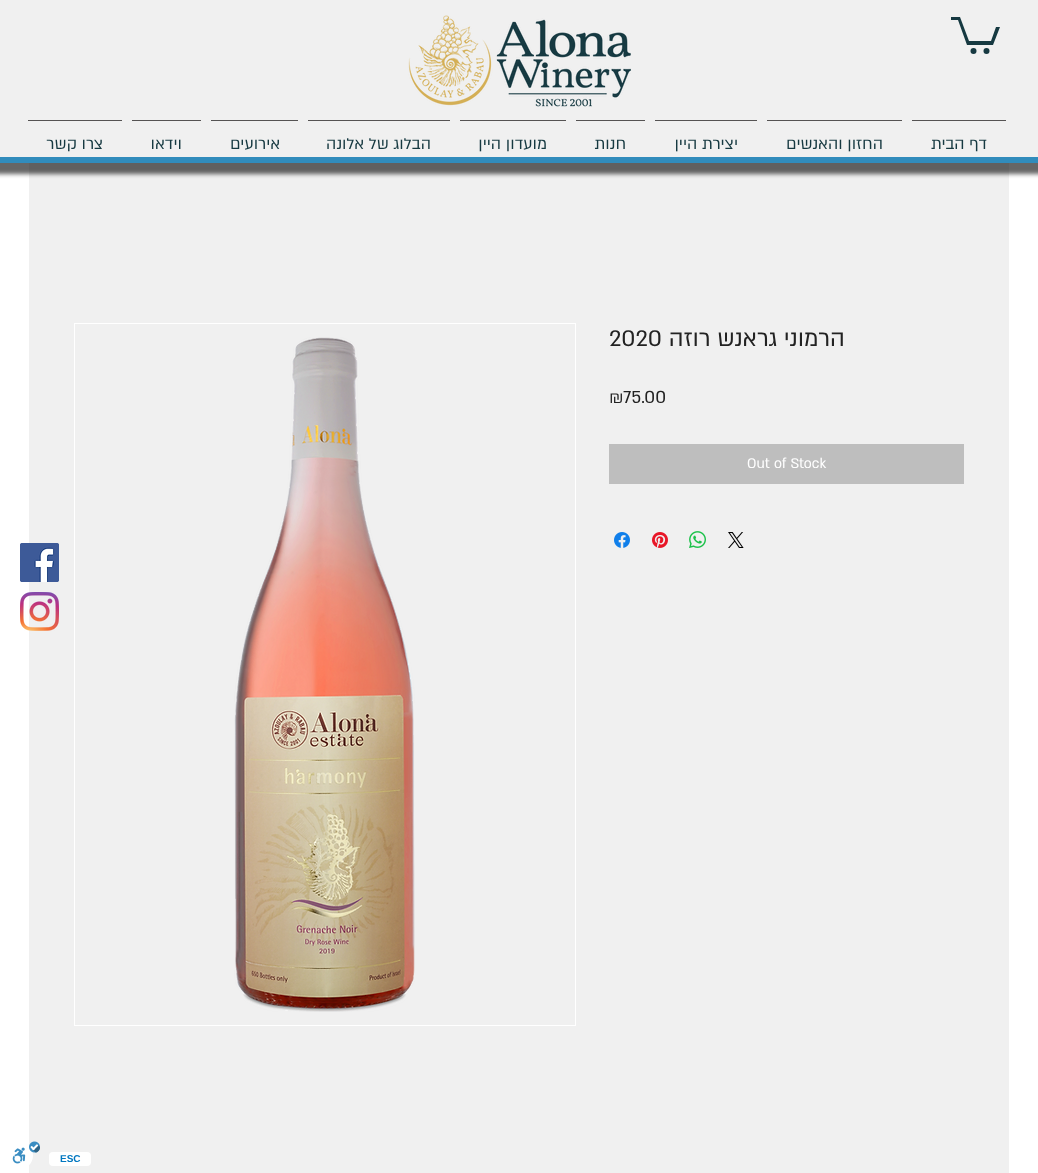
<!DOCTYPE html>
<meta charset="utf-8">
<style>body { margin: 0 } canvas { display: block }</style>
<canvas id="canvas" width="1038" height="1173"></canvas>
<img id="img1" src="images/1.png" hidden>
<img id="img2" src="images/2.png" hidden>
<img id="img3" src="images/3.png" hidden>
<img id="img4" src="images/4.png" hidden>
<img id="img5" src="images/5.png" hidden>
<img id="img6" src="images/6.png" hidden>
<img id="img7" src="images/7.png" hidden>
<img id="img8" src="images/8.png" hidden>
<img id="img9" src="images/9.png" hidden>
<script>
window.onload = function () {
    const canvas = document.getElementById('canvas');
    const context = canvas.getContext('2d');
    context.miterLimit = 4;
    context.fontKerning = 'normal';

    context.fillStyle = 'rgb(255, 255, 255)';
    context.fillRect(0, 0, 1038, 1173);
    context.fillStyle = 'rgb(240, 240, 240)';
    context.fillRect(29, 163, 980, 1010);
    context.fillStyle = 'rgba(0, 0, 0, 0.6)';
    context.filter = 'blur(2px)';
    context.beginPath();
    context.rect(-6, -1, 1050, 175);
    context.fill();
    context.filter = 'none';
    context.fillStyle = 'rgb(240, 240, 240)';
    context.fillRect(0, 0, 1038, 157);
    context.fillStyle = 'rgb(49, 140, 188)';
    context.fillRect(0, 157, 1038, 6);
    context.fillStyle = 'rgb(22, 57, 65)';
    context.beginPath();
    context.moveTo(1000, 27);
    context.lineTo(993, 45);
    context.lineTo(967, 45);
    context.lineTo(958, 20);
    context.lineTo(951, 20);
    context.lineTo(951, 17);
    context.lineTo(960, 17);
    context.lineTo(969, 41);
    context.lineTo(991, 41);
    context.lineTo(996, 27);
    context.fill();
    context.beginPath();
    context.arc(986.5, 51, 3, 0, 2 * Math.PI);
    context.fill();
    context.beginPath();
    context.arc(973.5, 51, 3, 0, 2 * Math.PI);
    context.fill();
    context.drawImage(document.getElementById('img1'), 408, 15, 223, 92);
    context.fillStyle = 'rgb(85, 83, 83)';
    context.fillRect(912, 120, 94, 1);
    context.fillRect(767, 120, 135, 1);
    context.fillRect(655, 120, 102, 1);
    context.fillRect(576, 120, 69, 1);
    context.fillRect(460, 120, 106, 1);
    context.fillRect(308, 120, 142, 1);
    context.fillRect(211, 120, 87, 1);
    context.fillRect(132, 120, 69, 1);
    context.fillRect(28, 120, 94, 1);
    context.fillStyle = 'rgb(190, 190, 190)';
    context.fillRect(609, 444, 355, 40);
    context.drawImage(document.getElementById('img2'), 728, 532, 16, 16);
    context.drawImage(document.getElementById('img3'), 689, 531, 17, 17);
    context.drawImage(document.getElementById('img4'), 652, 532, 16, 16);
    context.drawImage(document.getElementById('img5'), 614, 532, 16, 16);
    context.strokeStyle = 'rgb(255, 255, 255)';
    context.strokeRect(74.5, 323.5, 501, 702);
    context.drawImage(document.getElementById('img6'), 234, 337, 181, 675);
    context.drawImage(document.getElementById('img7'), 20, 543, 39, 39);
    context.drawImage(document.getElementById('img8'), 20, 592, 39, 39);
    context.fillStyle = 'rgb(255, 255, 255)';
    context.beginPath();
    context.roundRect(49, 1152, 42, 14, 4);
    context.fill();
    context.drawImage(document.getElementById('img9'), 12, 1141, 28, 24);
    context.direction = 'rtl';
    context.font = '18px "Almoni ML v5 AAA"';
    context.fillStyle = 'rgb(22, 57, 65)';
    context.fillText('דף הבית', 987, 149);
    context.fillText('החזון והאנשים', 883, 149);
    context.fillText('יצירת היין', 738, 149);
    context.fillText('חנות', 626, 149);
    context.fillText('מועדון היין', 547, 149);
    context.fillText('הבלוג של אלונה', 431, 149);
    context.fillText('אירועים', 280, 149);
    context.fillText('וידאו', 182, 149);
    context.fillText('צרו קשר', 103, 149);
    context.font = '26px "Almoni ML v5 AAA"';
    context.fillStyle = 'rgb(34, 34, 34)';
    context.fillText('הרמוני גראנש רוזה', 845, 346);
    context.direction = 'ltr';
    context.fillText('2020', 609, 346);
    context.font = '20px "Almoni ML v5 AAA"';
    context.fillText('₪75.00', 609, 403);
    context.font = '16px "Almoni ML v5 AAA"';
    context.fillStyle = 'rgb(255, 255, 255)';
    context.fillText('Out of Stock', 747, 468);
    context.font = 'bold 10px Liberation Sans';
    context.fillStyle = 'rgb(0, 119, 192)';
    context.fillText('ESC', 60, 1162);
};
</script>
